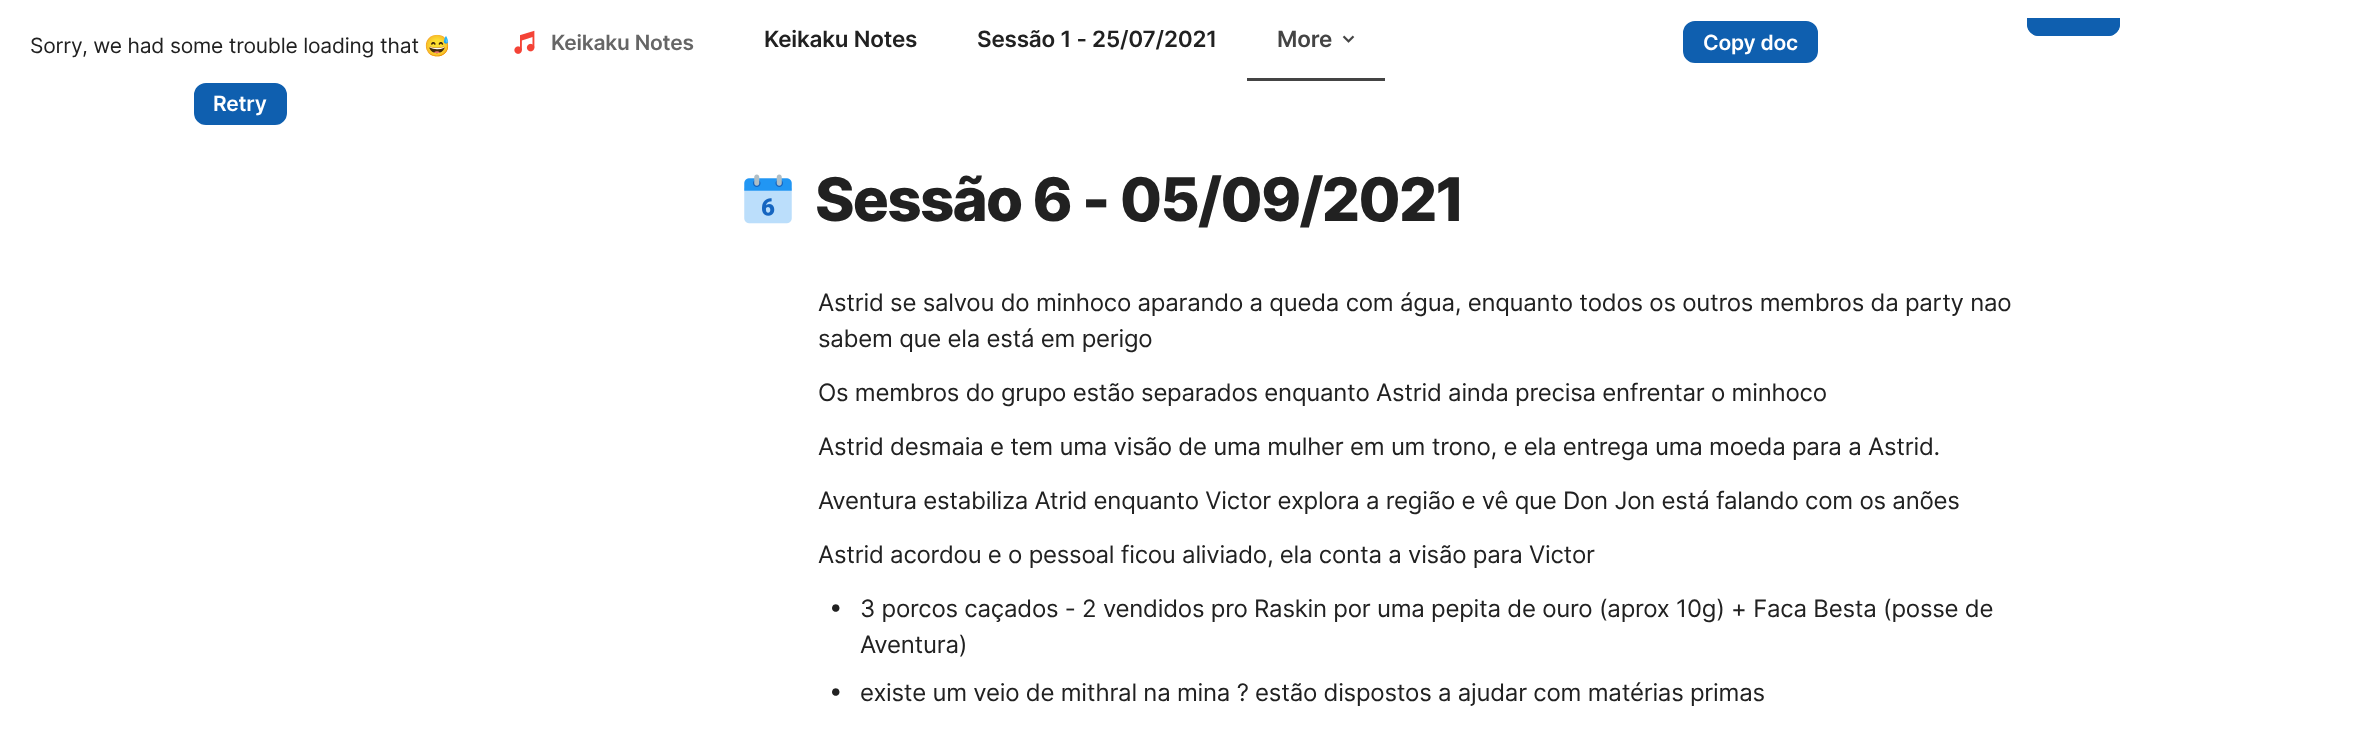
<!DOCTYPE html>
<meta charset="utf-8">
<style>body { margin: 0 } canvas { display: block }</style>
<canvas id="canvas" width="2354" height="732"></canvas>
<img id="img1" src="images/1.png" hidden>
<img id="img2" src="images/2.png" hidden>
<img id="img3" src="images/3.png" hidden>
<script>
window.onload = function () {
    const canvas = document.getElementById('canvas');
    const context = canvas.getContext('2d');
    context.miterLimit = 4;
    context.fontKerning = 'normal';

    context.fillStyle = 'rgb(255, 255, 255)';
    context.fillRect(0, 0, 2354, 732);
    context.fillStyle = 'rgb(15, 95, 175)';
    context.beginPath();
    context.roundRect(195, 84, 91, 40, 11);
    context.fill();
    context.strokeStyle = 'rgb(15, 95, 175)';
    context.lineWidth = 2;
    context.stroke();
    context.drawImage(document.getElementById('img1'), 514, 30, 21, 24);
    context.fillStyle = 'rgb(68, 68, 68)';
    context.fillRect(1247, 78, 138, 3);
    context.drawImage(document.getElementById('img2'), 1342, 35, 13, 8);
    context.fillStyle = 'rgb(15, 95, 175)';
    context.beginPath();
    context.roundRect(2027, 18, 93, 18, [0, 0, 12, 12]);
    context.fill();
    context.save();
    context.beginPath();
    context.rect(1653, 18, 675, 48);
    context.clip();
    context.beginPath();
    context.roundRect(2028, -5, 91, 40, 11);
    context.stroke();
    context.restore();
    context.beginPath();
    context.roundRect(1684, 22, 133, 40, 11);
    context.fill();
    context.stroke();
    context.drawImage(document.getElementById('img3'), 744, 174, 48, 50);
    context.letterSpacing = '-0.2px';
    context.font = '21px Inter';
    context.fillStyle = 'rgb(33, 33, 33)';
    context.fillText('Sorry, we had some trouble loading that', 30, 53);
    context.font = '21px Noto Color Emoji';
    context.fillText('😅', 424, 53);
    context.font = '600 21px Inter';
    context.fillStyle = 'rgb(255, 255, 255)';
    context.fillText('Retry', 213, 111);
    context.fillStyle = 'rgb(102, 102, 102)';
    context.fillText('Keikaku Notes', 551, 50);
    context.font = '600 22.5px Inter';
    context.fillStyle = 'rgb(33, 33, 33)';
    context.fillText('Keikaku Notes', 764, 47);
    context.fillText('Sessão 1 - 25/07/2021', 977, 47);
    context.fillStyle = 'rgb(68, 68, 68)';
    context.fillText('More', 1277, 47);
    context.font = '600 21px Inter';
    context.fillStyle = 'rgb(255, 255, 255)';
    context.fillText('Copy doc', 1703, 50);
    context.letterSpacing = '-1.8px';
    context.font = '800 60px Inter';
    context.fillStyle = 'rgb(33, 33, 33)';
    context.fillText('Sessão 6 - 05/09/2021', 815, 221);
    context.letterSpacing = '-0.24px';
    context.font = '24px Inter';
    context.fillText('Astrid se salvou do minhoco aparando a queda com água, enquanto todos os outros membros da party nao', 818, 311);
    context.fillText('sabem que ela está em perigo', 818, 347);
    context.fillText('Os membros do grupo estão separados enquanto Astrid ainda precisa enfrentar o minhoco', 818, 401);
    context.fillText('Astrid desmaia e tem uma visão de uma mulher em um trono, e ela entrega uma moeda para a Astrid.', 818, 455);
    context.fillText('Aventura estabiliza Atrid enquanto Victor explora a região e vê que Don Jon está falando com os anões', 818, 509);
    context.fillText('Astrid acordou e o pessoal ficou aliviado, ela conta a visão para Victor', 818, 563);
    context.fillText('•', 829, 615);
    context.fillText('3 porcos caçados - 2 vendidos pro Raskin por uma pepita de ouro (aprox 10g) + Faca Besta (posse de', 860, 617);
    context.fillText('Aventura)', 860, 653);
    context.fillText('•', 829, 699);
    context.fillText('existe um veio de mithral na mina ? estão dispostos a ajudar com matérias primas', 860, 701);
};
</script>
